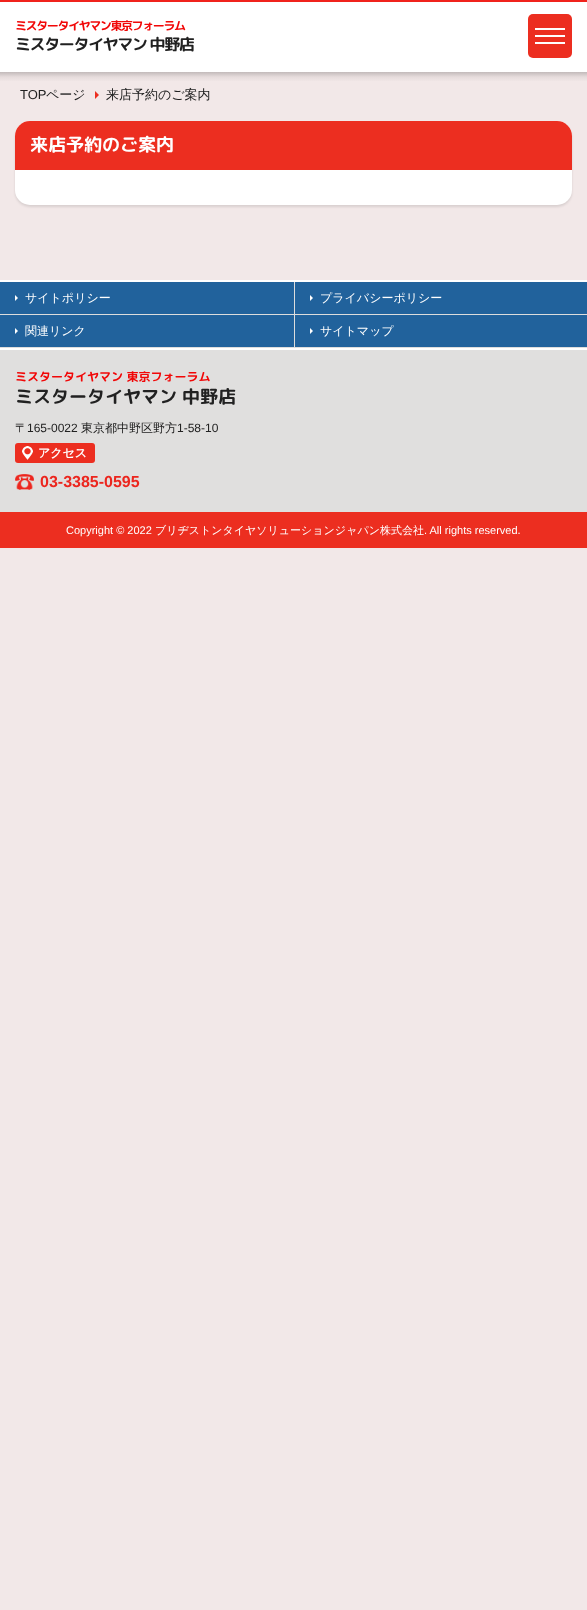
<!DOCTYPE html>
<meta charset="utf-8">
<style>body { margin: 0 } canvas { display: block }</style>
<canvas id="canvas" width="587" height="1610"></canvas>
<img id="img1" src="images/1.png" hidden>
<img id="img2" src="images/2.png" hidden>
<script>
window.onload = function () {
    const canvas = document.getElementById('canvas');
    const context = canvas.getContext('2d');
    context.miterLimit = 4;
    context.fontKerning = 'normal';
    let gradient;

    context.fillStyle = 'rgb(242, 232, 232)';
    context.fillRect(0, 0, 587, 1610);
    context.fillStyle = 'rgb(255, 255, 255)';
    context.fillRect(0, 2, 587, 70);
    context.fillStyle = 'rgb(240, 35, 28)';
    context.fillRect(0, 0, 587, 2);
    context.fillStyle = 'rgb(236, 46, 32)';
    context.beginPath();
    context.roundRect(528, 14, 44, 44, 5);
    context.fill();
    context.fillStyle = 'rgb(255, 255, 255)';
    context.fillRect(535, 35, 30, 2);
    context.fillRect(535, 28, 30, 2);
    context.fillRect(535, 42, 30, 2);
    gradient = context.createLinearGradient(294, 72, 294, 82);
    gradient.addColorStop(0, 'rgb(194, 186, 186)');
    gradient.addColorStop(0.5, 'rgb(230, 220, 220)');
    gradient.addColorStop(1, 'rgb(242, 232, 232)');
    context.fillStyle = gradient;
    context.fillRect(0, 72, 587, 9);
    context.fillStyle = 'rgb(236, 46, 32)';
    context.beginPath();
    context.moveTo(95, 99);
    context.lineTo(95, 91);
    context.lineTo(99, 95);
    context.closePath();
    context.fill();
    context.fillStyle = 'rgba(0, 0, 0, 0.1)';
    context.filter = 'blur(1px)';
    context.beginPath();
    context.roundRect(15, 123, 557, 84, 15);
    context.fill();
    context.filter = 'none';
    context.fillStyle = 'rgb(255, 255, 255)';
    context.beginPath();
    context.roundRect(15, 121, 557, 84, 15);
    context.fill();
    context.fillStyle = 'rgb(236, 46, 32)';
    context.beginPath();
    context.roundRect(15, 121, 557, 49, [15, 15, 0, 0]);
    context.fill();
    context.fillStyle = 'rgb(224, 223, 222)';
    context.fillRect(0, 350, 587, 162);
    context.fillStyle = 'rgb(255, 255, 255)';
    context.fillRect(0, 280, 587, 2);
    context.fillStyle = 'rgb(33, 98, 156)';
    context.fillRect(0, 282, 587, 65);
    context.fillStyle = 'rgb(255, 255, 255)';
    context.fillRect(0, 348, 587, 2);
    context.fillStyle = 'rgb(221, 221, 221)';
    context.fillRect(0, 314, 587, 1);
    context.fillStyle = 'rgb(255, 255, 255)';
    context.beginPath();
    context.moveTo(15, 301);
    context.lineTo(15, 295);
    context.lineTo(18, 298);
    context.closePath();
    context.fill();
    context.fillStyle = 'rgb(221, 221, 221)';
    context.fillRect(294, 282, 1, 33);
    context.fillStyle = 'rgb(255, 255, 255)';
    context.beginPath();
    context.moveTo(310, 301);
    context.lineTo(310, 295);
    context.lineTo(313, 298);
    context.closePath();
    context.fill();
    context.fillStyle = 'rgb(221, 221, 221)';
    context.fillRect(0, 347, 587, 1);
    context.fillStyle = 'rgb(255, 255, 255)';
    context.beginPath();
    context.moveTo(15, 334);
    context.lineTo(15, 328);
    context.lineTo(18, 331);
    context.closePath();
    context.fill();
    context.fillStyle = 'rgb(221, 221, 221)';
    context.fillRect(294, 315, 1, 33);
    context.fillStyle = 'rgb(255, 255, 255)';
    context.beginPath();
    context.moveTo(310, 334);
    context.lineTo(310, 328);
    context.lineTo(313, 331);
    context.closePath();
    context.fill();
    context.fillStyle = 'rgb(236, 46, 32)';
    context.beginPath();
    context.roundRect(15, 443, 80, 20, 3);
    context.fill();
    context.drawImage(document.getElementById('img1'), 22, 446, 11, 14);
    context.drawImage(document.getElementById('img2'), 15, 474, 19, 16);
    context.fillRect(0, 512, 587, 36);
    context.letterSpacing = '-1.4px';
    context.font = 'bold 12px "Rounded Mplus 1c Bold"';
    context.fillStyle = 'rgb(241, 7, 7)';
    context.fillText('ミスタータイヤマン東京フォーラム', 15, 30);
    context.font = 'bold 16px "Rounded Mplus 1c Bold"';
    context.fillStyle = 'rgb(33, 33, 33)';
    context.fillText('ミスタータイヤマン 中野店', 15, 50);
    context.letterSpacing = '0px';
    context.font = '13px Liberation Sans';
    context.fillText('TOP', 20, 99);
    context.font = '500 13px WenQuanYi Zen Hei';
    context.fillText('ページ', 46, 99);
    context.fillText('来店予約のご案内', 106, 99);
    context.font = 'bold 18px "Rounded Mplus 1c Bold"';
    context.fillStyle = 'rgb(255, 255, 255)';
    context.fillText('来店予約のご案内', 30, 151);
    context.font = '500 12px WenQuanYi Zen Hei';
    context.fillText('サイトポリシー', 25, 302);
    context.fillText('プライバシーポリシー', 320, 302);
    context.fillText('関連リンク', 25, 335);
    context.fillText('サイトマップ', 320, 335);
    context.font = 'bold 12px "Rounded Mplus 1c Bold"';
    context.fillStyle = 'rgb(241, 7, 7)';
    context.fillText('ミスタータイヤマン 東京フォーラム', 15, 381);
    context.font = 'bold 18px "Rounded Mplus 1c Bold"';
    context.fillStyle = 'rgb(33, 33, 33)';
    context.fillText('ミスタータイヤマン 中野店', 15, 403);
    context.font = '500 12px WenQuanYi Zen Hei';
    context.fillText('〒', 15, 432);
    context.font = '12px Liberation Sans';
    context.fillText('165-0022', 27, 432);
    context.font = '500 12px WenQuanYi Zen Hei';
    context.fillText('東京都中野区野方', 81, 432);
    context.font = '12px Liberation Sans';
    context.fillText('1-58-10', 177, 432);
    context.font = 'bold 12px WenQuanYi Zen Hei';
    context.fillStyle = 'rgb(255, 255, 255)';
    context.fillText('アクセス', 38, 457);
    context.font = 'bold 16px Liberation Sans';
    context.fillStyle = 'rgb(236, 38, 30)';
    context.fillText('03-3385-0595', 40, 487);
    context.font = '11px Liberation Sans';
    context.fillStyle = 'rgb(255, 255, 255)';
    context.fillText('Copyright © 2022', 66, 534);
    context.font = '500 11px WenQuanYi Zen Hei';
    context.fillText('ブリヂストンタイヤソリューションジャパン株式会社', 155, 534);
    context.font = '11px Liberation Sans';
    context.fillText('. All rights reserved.', 424, 534);
};
</script>
